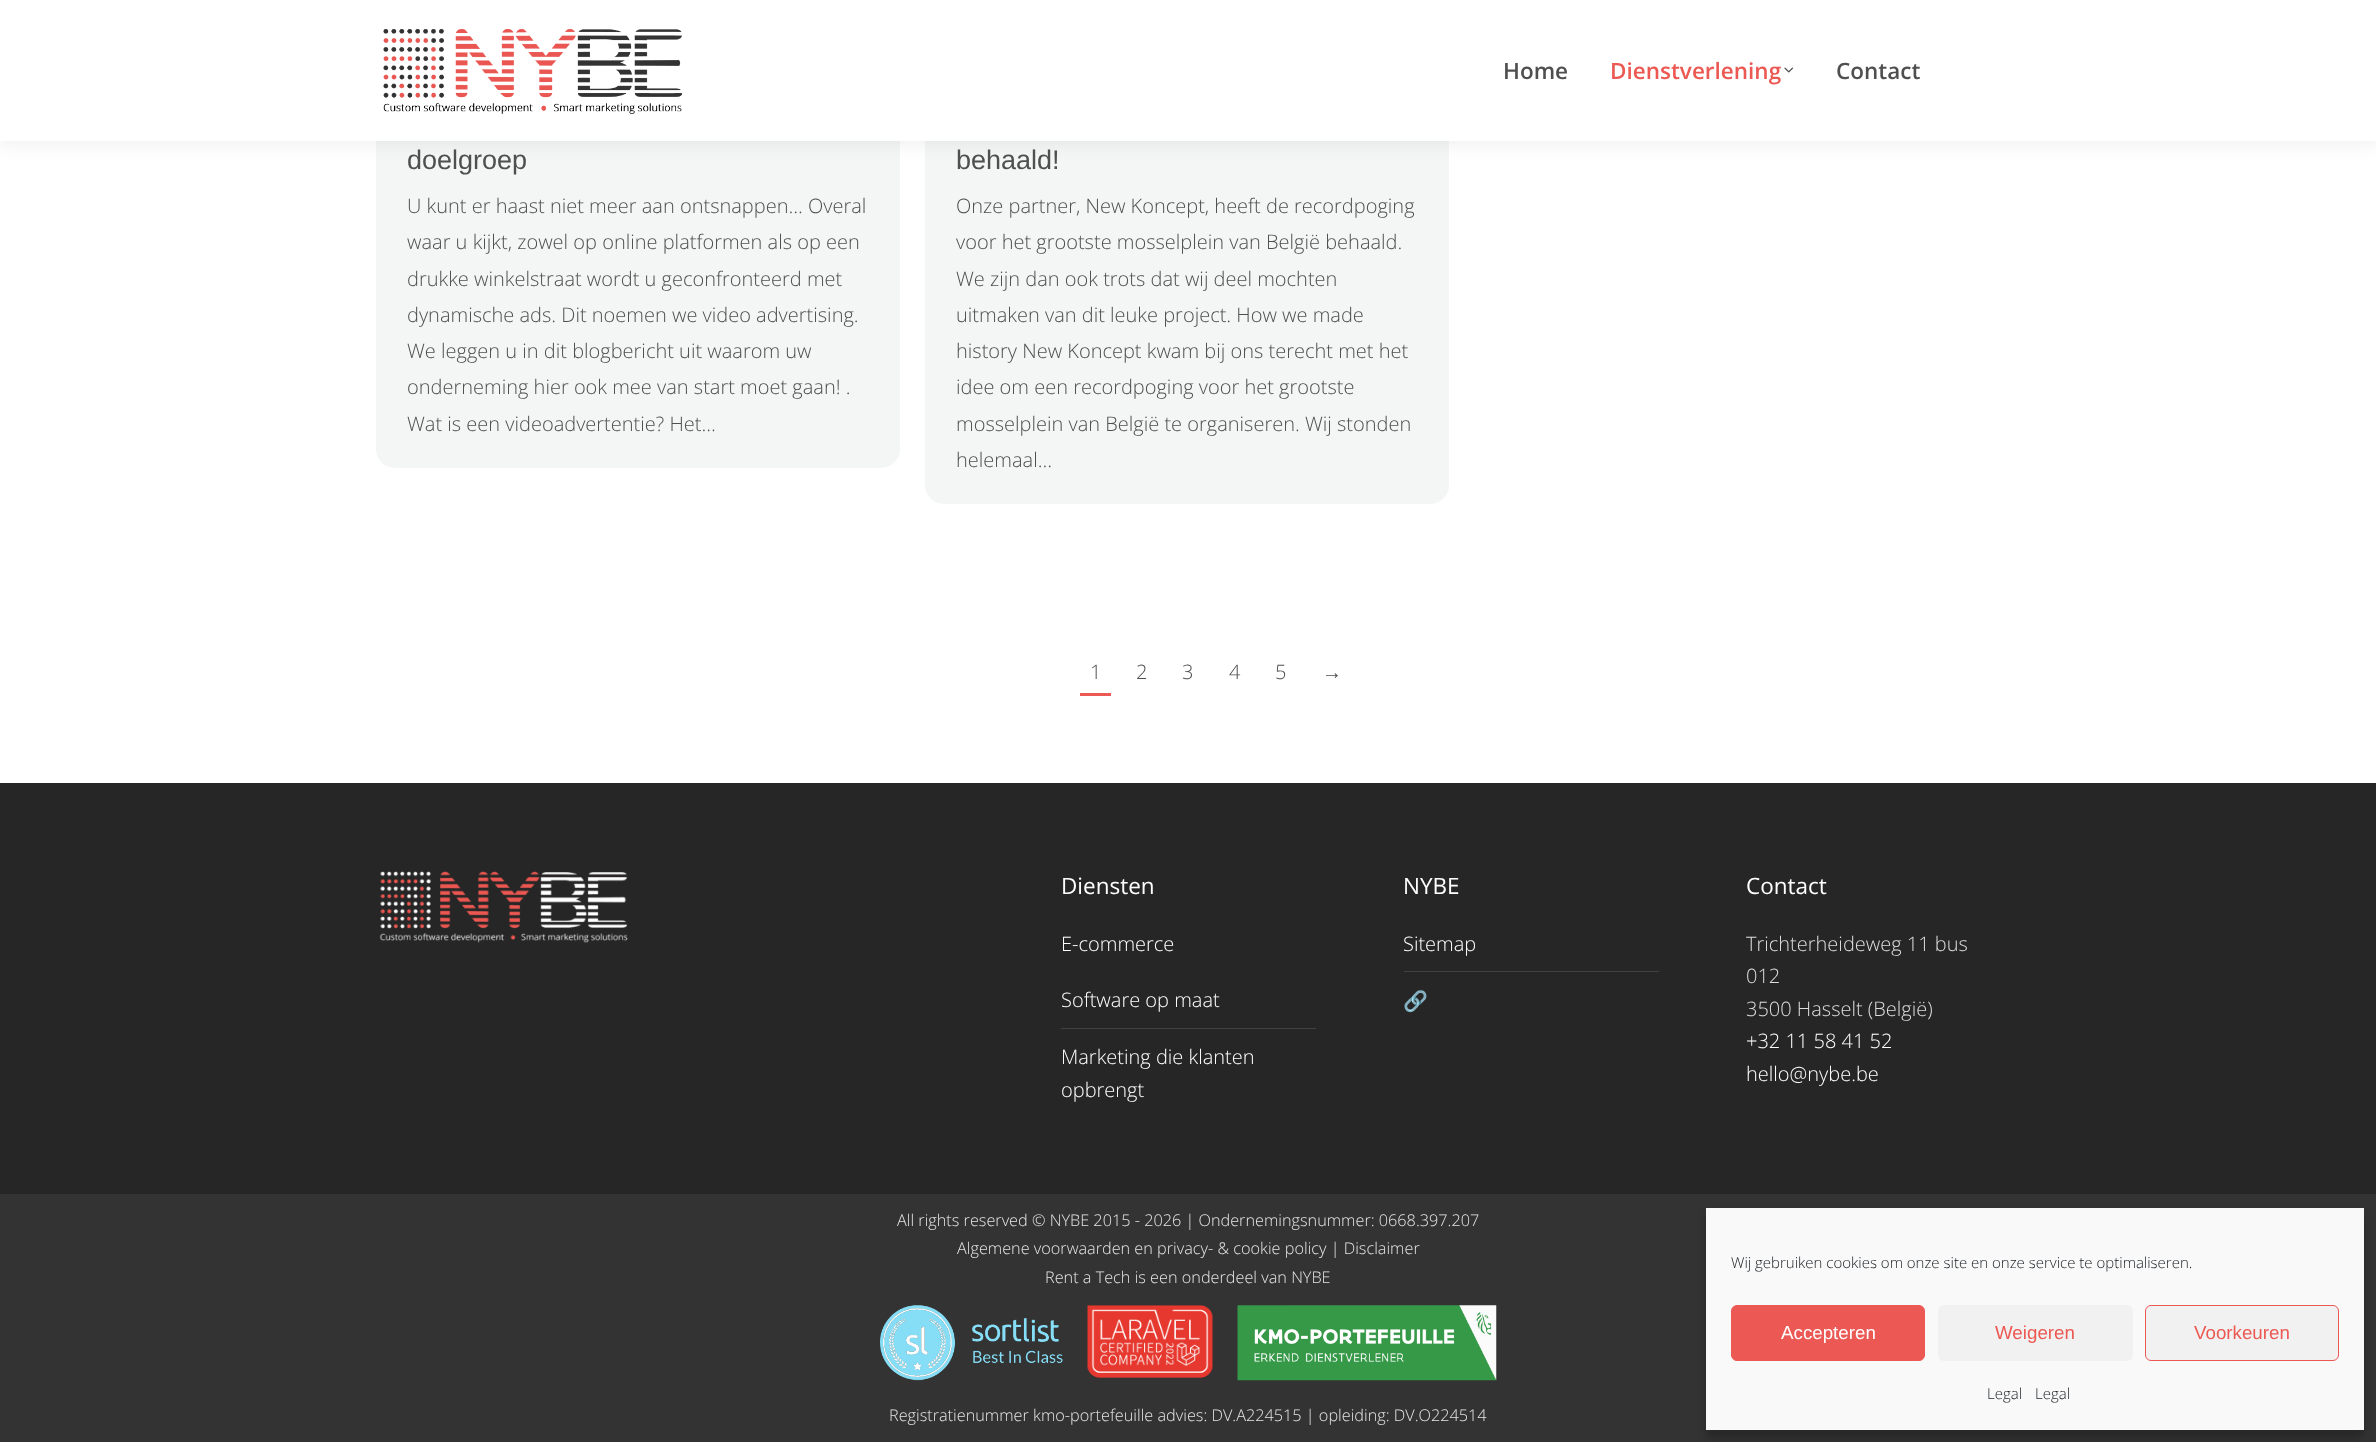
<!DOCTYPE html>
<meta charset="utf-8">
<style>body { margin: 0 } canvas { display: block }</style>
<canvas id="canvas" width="2376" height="1442"></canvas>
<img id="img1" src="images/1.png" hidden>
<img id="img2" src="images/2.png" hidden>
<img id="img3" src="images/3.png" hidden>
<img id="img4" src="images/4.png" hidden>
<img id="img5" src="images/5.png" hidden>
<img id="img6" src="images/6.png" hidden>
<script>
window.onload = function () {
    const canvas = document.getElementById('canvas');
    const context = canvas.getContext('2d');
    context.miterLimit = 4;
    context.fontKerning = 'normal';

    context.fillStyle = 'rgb(255, 255, 255)';
    context.fillRect(0, 0, 2376, 1442);
    context.fillStyle = 'rgb(244, 245, 245)';
    context.beginPath();
    context.roundRect(376, -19, 524, 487, 19);
    context.fill();
    context.beginPath();
    context.roundRect(925, -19, 524, 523, 19);
    context.fill();
    context.fillStyle = 'rgba(0, 0, 0, 0.07)';
    context.filter = 'blur(9.5px)';
    context.beginPath();
    context.rect(-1, -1, 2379, 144);
    context.fill();
    context.filter = 'none';
    context.fillStyle = 'rgb(255, 255, 255)';
    context.fillRect(0, 0, 2376, 141);
    context.drawImage(document.getElementById('img1'), 383, 29, 300, 85);
    context.drawImage(document.getElementById('img2'), 1784, 67, 10, 6);
    context.fillStyle = 'rgb(235, 89, 84)';
    context.fillRect(1080, 693, 31, 3);
    context.fillStyle = 'rgb(38, 38, 38)';
    context.fillRect(0, 783, 2376, 411);
    context.drawImage(document.getElementById('img3'), 379, 871, 249, 72);
    context.fillStyle = 'rgb(65, 65, 65)';
    context.fillRect(1061, 1028, 255, 1);
    context.fillRect(1404, 971, 255, 1);
    context.fillStyle = 'rgb(51, 51, 51)';
    context.fillRect(0, 1194, 2376, 248);
    context.drawImage(document.getElementById('img4'), 880, 1305, 183, 76);
    context.drawImage(document.getElementById('img5'), 1087, 1305, 126, 73);
    context.drawImage(document.getElementById('img6'), 1237, 1305, 260, 76);
    context.fillStyle = 'rgba(0, 0, 0, 0.23)';
    context.filter = 'blur(4px)';
    context.beginPath();
    context.rect(1706, 1215, 658, 223);
    context.fill();
    context.filter = 'none';
    context.fillStyle = 'rgb(249, 249, 249)';
    context.fillRect(1706, 1208, 658, 222);
    context.fillStyle = 'rgb(236, 88, 84)';
    context.beginPath();
    context.roundRect(1731.5, 1305.5, 193, 55, 5.5);
    context.fill();
    context.strokeStyle = 'rgb(236, 88, 84)';
    context.stroke();
    context.fillStyle = 'rgb(241, 241, 241)';
    context.beginPath();
    context.roundRect(1938, 1305, 195, 56, 6);
    context.fill();
    context.beginPath();
    context.roundRect(2145.5, 1305.5, 193, 55, 5.5);
    context.fill();
    context.stroke();
    context.font = '600 22.5px Open Sans';
    context.fillStyle = 'rgb(79, 79, 79)';
    context.fillText('Home', 1503, 79);
    context.fillStyle = 'rgb(236, 88, 82)';
    context.fillText('Dienstverlening', 1610, 79);
    context.fillStyle = 'rgb(79, 79, 79)';
    context.fillText('Contact', 1836, 79);
    context.font = '27px Liberation Sans';
    context.fillText('doelgroep', 407, 169);
    context.font = '300 20px Open Sans';
    context.fillText('U kunt er haast niet meer aan ontsnappen… Overal', 407, 213);
    context.fillText('waar u kijkt, zowel op online platformen als op een', 407, 249);
    context.fillText('drukke winkelstraat wordt u geconfronteerd met', 407, 286);
    context.fillText('dynamische ads. Dit noemen we video advertising.', 407, 322);
    context.fillText('We leggen u in dit blogbericht uit waarom uw', 407, 358);
    context.fillText('onderneming hier ook mee van start moet gaan! .', 407, 394);
    context.fillText('Wat is een videoadvertentie? Het…', 407, 431);
    context.font = '27px Liberation Sans';
    context.fillText('behaald!', 956, 169);
    context.font = '300 20px Open Sans';
    context.fillText('Onze partner, New Koncept, heeft de recordpoging', 956, 213);
    context.fillText('voor het grootste mosselplein van België behaald.', 956, 249);
    context.fillText('We zijn dan ook trots dat wij deel mochten', 956, 286);
    context.fillText('uitmaken van dit leuke project. How we made', 956, 322);
    context.fillText('history New Koncept kwam bij ons terecht met het', 956, 358);
    context.fillText('idee om een recordpoging voor het grootste', 956, 394);
    context.fillText('mosselplein van België te organiseren. Wij stonden', 956, 431);
    context.fillText('helemaal…', 956, 467);
    context.fillText('1', 1090, 679);
    context.fillText('2', 1136, 679);
    context.fillText('3', 1182, 679);
    context.fillText('4', 1229, 679);
    context.fillText('5', 1275, 679);
    context.font = '20px Liberation Sans';
    context.fillText('→', 1322, 679);
    context.font = '22.5px Open Sans';
    context.fillStyle = 'rgb(255, 255, 255)';
    context.fillText('Diensten', 1061, 894);
    context.font = '300 20px Open Sans';
    context.fillText('E-commerce', 1061, 951);
    context.fillText('Software op maat', 1061, 1007);
    context.fillText('Marketing die klanten', 1061, 1064);
    context.fillText('opbrengt', 1061, 1097);
    context.font = '22.5px Open Sans';
    context.fillText('NYBE', 1403, 894);
    context.font = '300 20px Open Sans';
    context.fillText('Sitemap', 1403, 951);
    context.font = '20px Noto Color Emoji';
    context.fillText('🔗', 1403, 1008);
    context.font = '22.5px Open Sans';
    context.fillText('Contact', 1746, 894);
    context.font = '300 20px Open Sans';
    context.fillStyle = 'rgb(221, 221, 221)';
    context.fillText('Trichterheideweg 11 bus', 1746, 951);
    context.fillText('012', 1746, 983);
    context.fillText('3500 Hasselt (België)', 1746, 1016);
    context.fillStyle = 'rgb(255, 255, 255)';
    context.fillText('+32 11 58 41 52', 1746, 1048);
    context.fillText('hello@nybe.be', 1746, 1081);
    context.font = '300 16.25px Open Sans';
    context.fillStyle = 'rgb(229, 229, 229)';
    context.fillText('All rights reserved © NYBE 2015 - 2026 | Ondernemingsnummer: 0668.397.207', 897, 1226);
    context.fillText('Algemene voorwaarden en privacy- & cookie policy | Disclaimer', 957, 1254);
    context.fillText('Rent a Tech is een onderdeel van NYBE', 1045, 1283);
    context.fillText('Registratienummer kmo-portefeuille advies: DV.A224515 | opleiding: DV.O224514', 889, 1421);
    context.font = '300 15px Open Sans';
    context.fillStyle = 'rgb(25, 30, 35)';
    context.fillText('Wij gebruiken cookies om onze site en onze service te optimaliseren.', 1731, 1268);
    context.font = '18.75px Liberation Sans';
    context.fillStyle = 'rgb(255, 255, 255)';
    context.fillText('Accepteren', 1781, 1339);
    context.fillStyle = 'rgb(236, 88, 82)';
    context.fillText('Weigeren', 1995, 1339);
    context.fillText('Voorkeuren', 2194, 1339);
    context.font = '300 15px Open Sans';
    context.fillStyle = 'rgb(25, 30, 35)';
    context.fillText('Legal', 1987, 1399);
    context.fillText('Legal', 2035, 1399);
};
</script>
